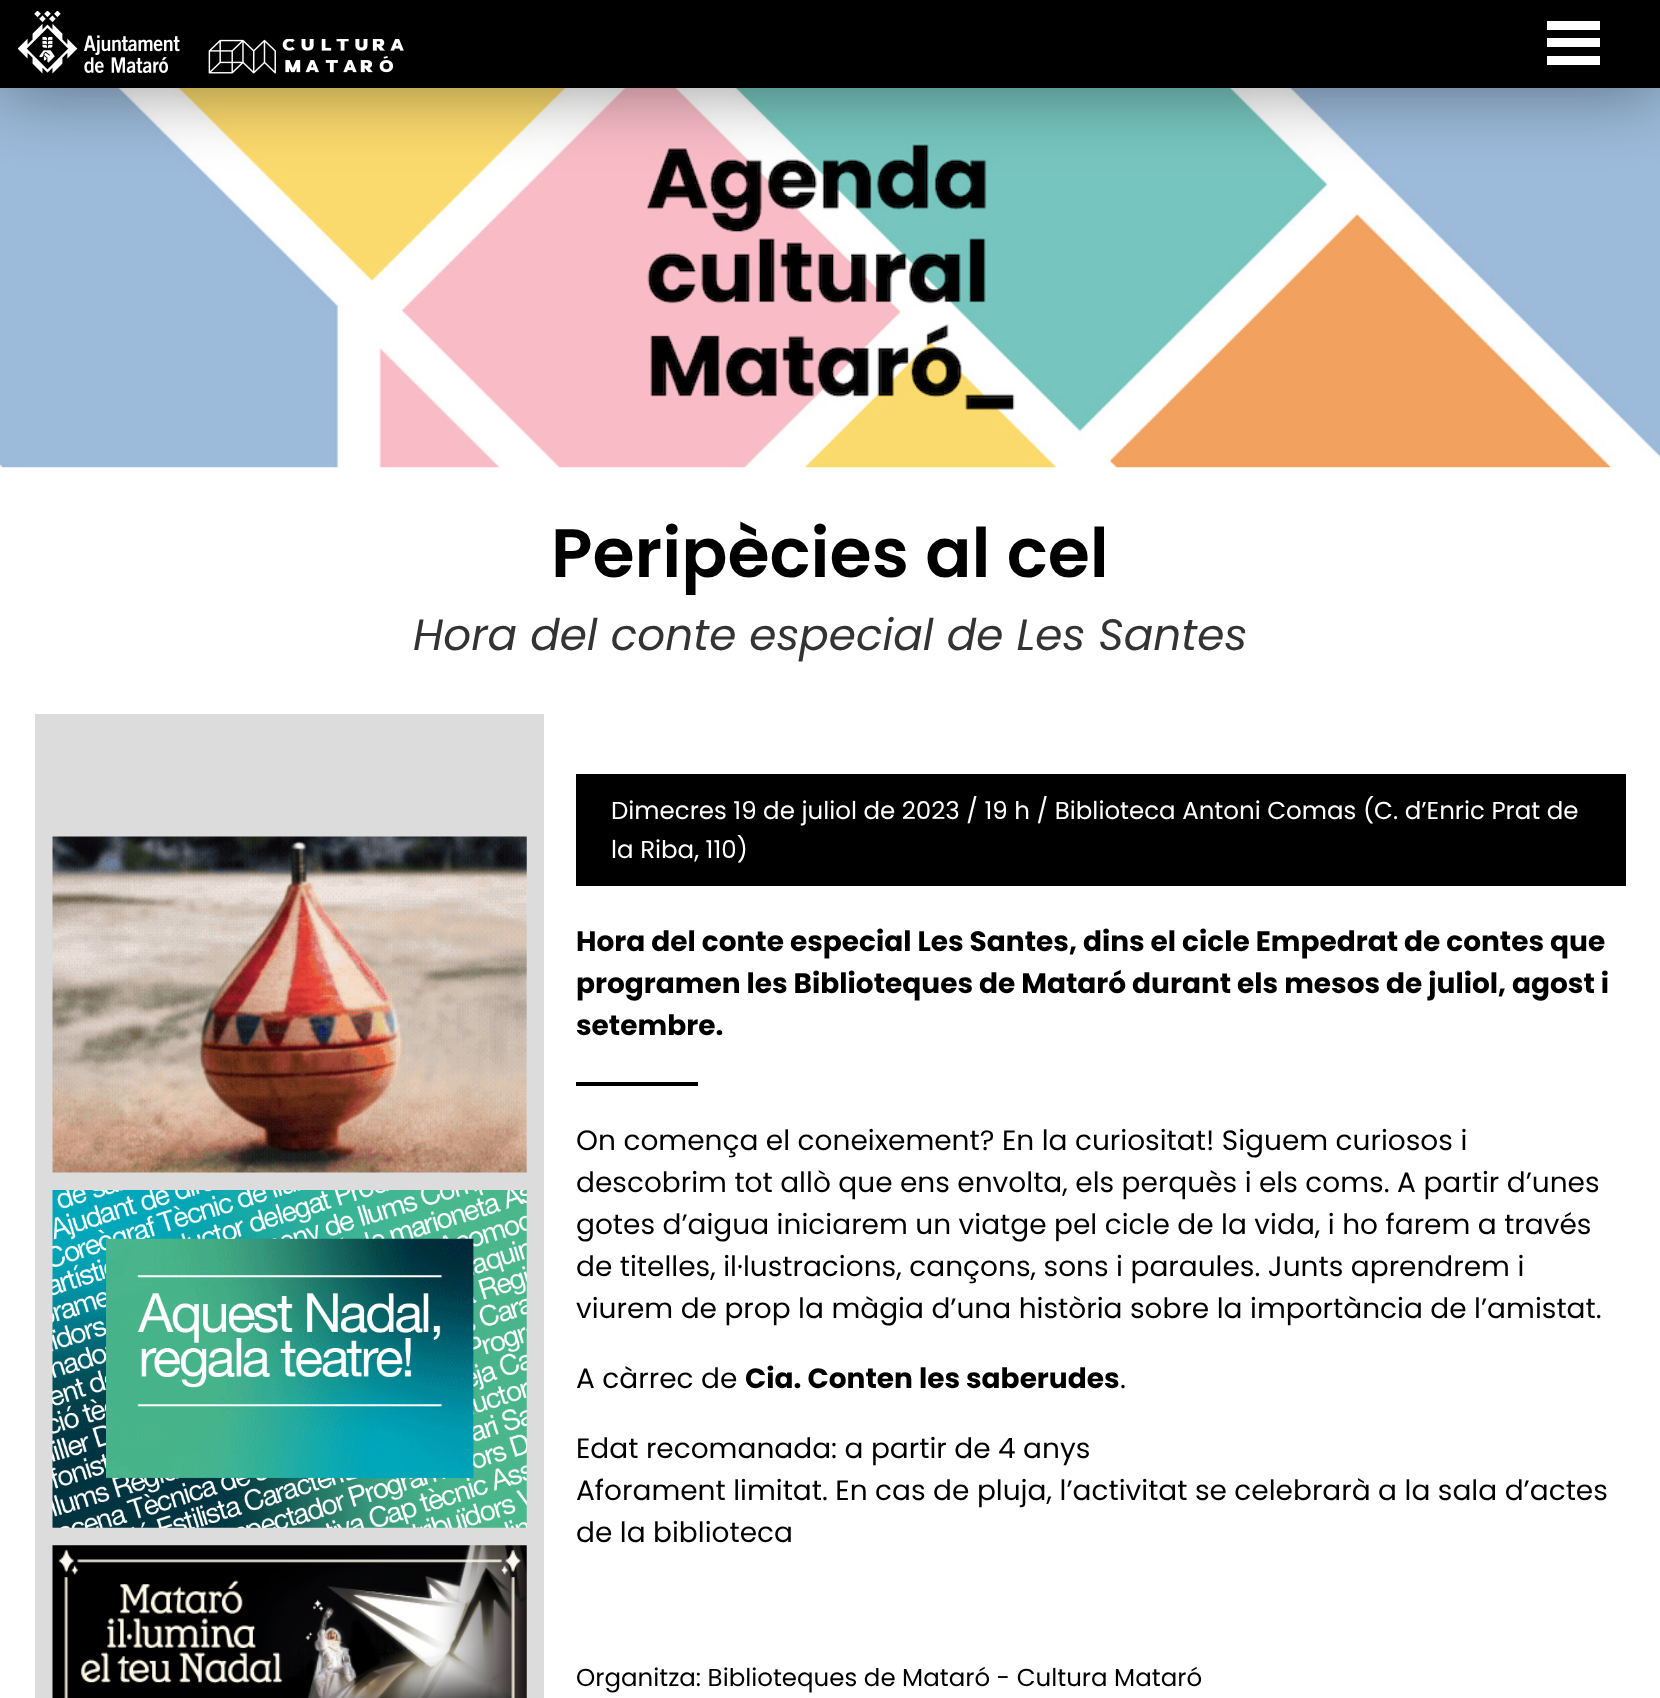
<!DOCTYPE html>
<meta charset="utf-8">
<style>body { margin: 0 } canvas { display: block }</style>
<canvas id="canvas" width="1660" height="1698"></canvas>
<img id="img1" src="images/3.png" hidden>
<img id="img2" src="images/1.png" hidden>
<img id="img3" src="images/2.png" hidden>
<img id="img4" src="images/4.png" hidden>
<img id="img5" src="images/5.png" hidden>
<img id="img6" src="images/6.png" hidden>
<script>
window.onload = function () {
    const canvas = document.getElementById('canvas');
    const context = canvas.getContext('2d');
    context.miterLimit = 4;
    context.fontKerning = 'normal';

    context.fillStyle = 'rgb(255, 255, 255)';
    context.fillRect(0, 0, 1660, 1698);
    context.drawImage(document.getElementById('img1'), 0, 88, 1660, 380);
    context.fillStyle = 'rgba(0, 0, 0, 0.4)';
    context.filter = 'blur(35px)';
    context.beginPath();
    context.rect(0, 4, 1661, 87);
    context.fill();
    context.filter = 'none';
    context.fillStyle = 'rgb(0, 0, 0)';
    context.fillRect(0, 0, 1660, 88);
    context.drawImage(document.getElementById('img2'), 18, 11, 162, 63);
    context.drawImage(document.getElementById('img3'), 208, 39, 196, 35);
    context.fillStyle = 'rgb(255, 255, 255)';
    context.beginPath();
    context.moveTo(1547, 65);
    context.lineTo(1547, 56);
    context.lineTo(1600, 56);
    context.lineTo(1600, 65);
    context.closePath();
    context.moveTo(1547, 38);
    context.lineTo(1600, 38);
    context.lineTo(1600, 47);
    context.lineTo(1547, 47);
    context.closePath();
    context.moveTo(1547, 21);
    context.lineTo(1600, 21);
    context.lineTo(1600, 30);
    context.lineTo(1547, 30);
    context.closePath();
    context.fill();
    context.fillStyle = 'rgb(220, 220, 220)';
    context.fillRect(35, 714, 509, 984);
    context.drawImage(document.getElementById('img4'), 52, 836, 475, 337);
    context.drawImage(document.getElementById('img5'), 52, 1190, 475, 338);
    context.drawImage(document.getElementById('img6'), 52, 1545, 475, 153);
    context.fillStyle = 'rgb(0, 0, 0)';
    context.fillRect(576, 774, 1050, 112);
    context.fillRect(576, 1082, 122, 4);
    context.font = '600 68.25px Poppins';
    context.fillText('Peripècies al cel', 551, 577);
    context.font = 'italic 43.75px Poppins';
    context.fillStyle = 'rgb(51, 51, 51)';
    context.fillText('Hora del conte especial de Les Santes', 413, 650);
    context.font = '24.5px Poppins';
    context.fillStyle = 'rgb(255, 255, 255)';
    context.fillText('Dimecres 19 de juliol de 2023 / 19 h / Biblioteca Antoni Comas (C. d’Enric Prat de', 611, 819);
    context.fillText('la Riba, 110)', 611, 858);
    context.font = 'bold 28px Poppins';
    context.fillStyle = 'rgb(0, 0, 0)';
    context.fillText('Hora del conte especial Les Santes, dins el cicle Empedrat de contes que', 576, 951);
    context.fillText('programen les Biblioteques de Mataró durant els mesos de juliol, agost i', 576, 993);
    context.fillText('setembre.', 576, 1035);
    context.font = '28px Poppins';
    context.fillText('On comença el coneixement? En la curiositat! Siguem curiosos i', 576, 1150);
    context.fillText('descobrim tot allò que ens envolta, els perquès i els coms. A partir d’unes', 576, 1192);
    context.fillText('gotes d’aigua iniciarem un viatge pel cicle de la vida, i ho farem a través', 576, 1234);
    context.fillText('de titelles, il·lustracions, cançons, sons i paraules. Junts aprendrem i', 576, 1276);
    context.fillText('viurem de prop la màgia d’una història sobre la importància de l’amistat.', 576, 1318);
    context.fillText('A càrrec de', 576, 1388);
    context.font = 'bold 28px Poppins';
    context.fillText('Cia. Conten les saberudes', 745, 1388);
    context.font = '28px Poppins';
    context.fillText('.', 1120, 1388);
    context.fillText('Edat recomanada: a partir de 4 anys', 576, 1458);
    context.fillText('Aforament limitat. En cas de pluja, l’activitat se celebrarà a la sala d’actes', 576, 1500);
    context.fillText('de la biblioteca', 576, 1542);
    context.font = '24.5px Poppins';
    context.fillText('Organitza: Biblioteques de Mataró - Cultura Mataró', 576, 1686);
};
</script>
